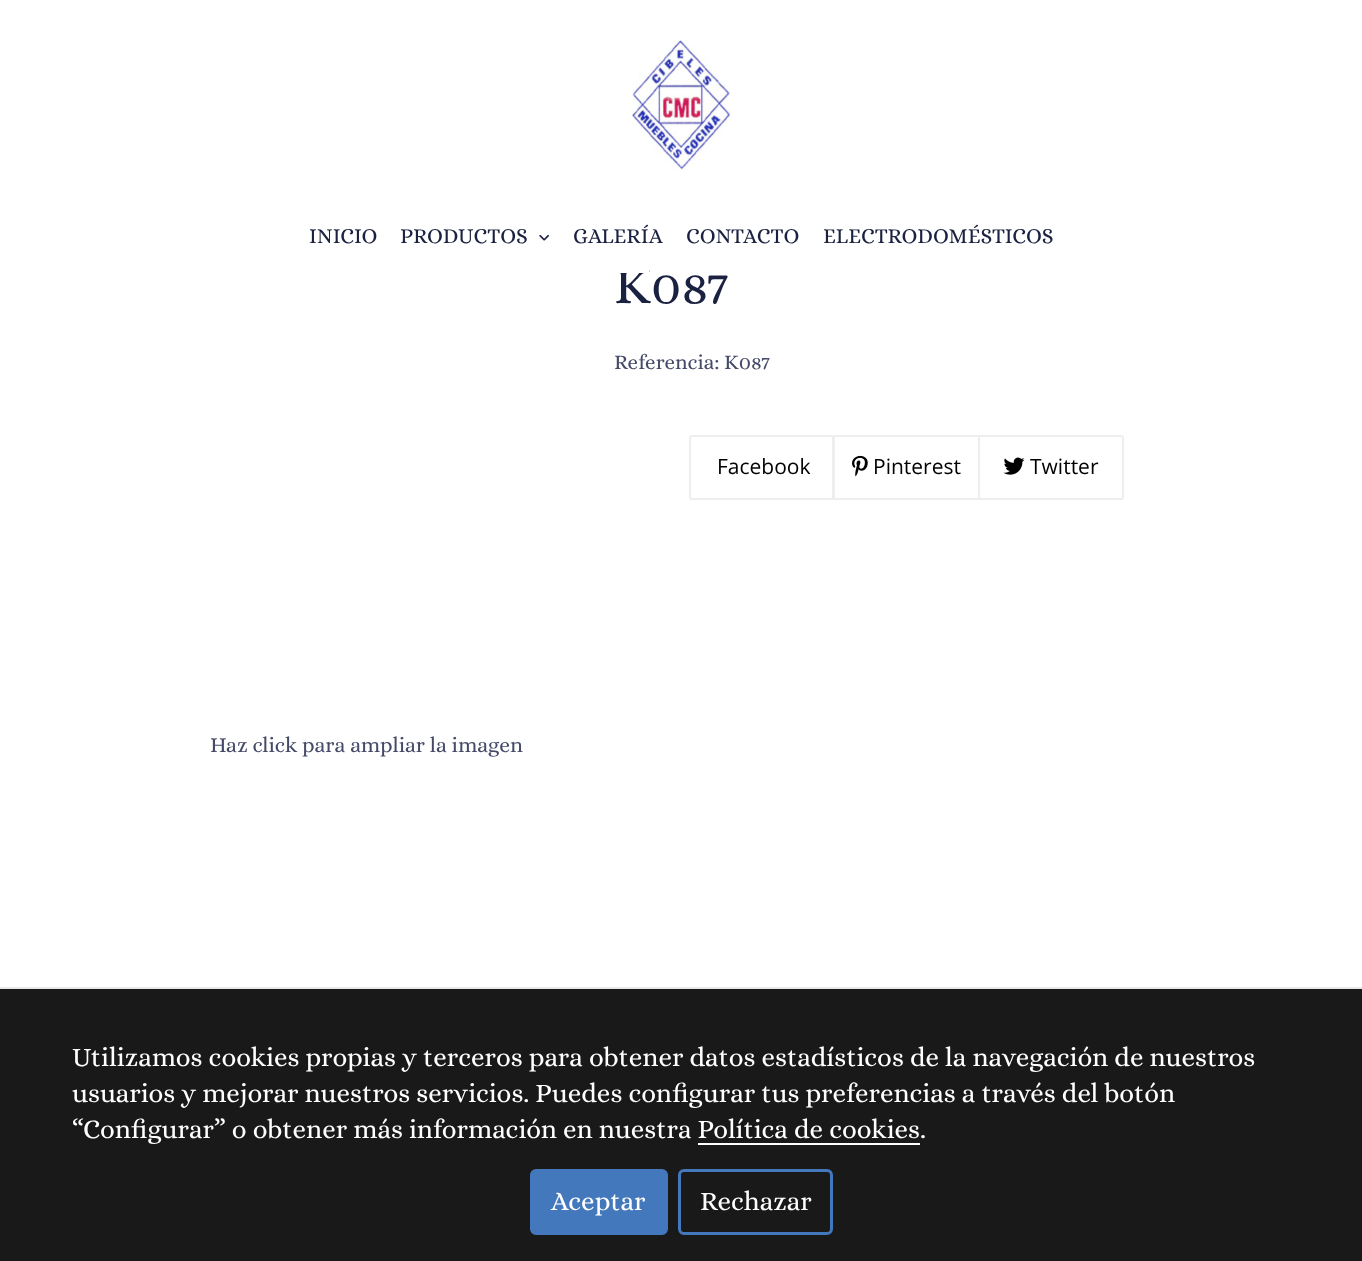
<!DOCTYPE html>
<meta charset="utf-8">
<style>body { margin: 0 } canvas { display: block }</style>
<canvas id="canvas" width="1362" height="1261"></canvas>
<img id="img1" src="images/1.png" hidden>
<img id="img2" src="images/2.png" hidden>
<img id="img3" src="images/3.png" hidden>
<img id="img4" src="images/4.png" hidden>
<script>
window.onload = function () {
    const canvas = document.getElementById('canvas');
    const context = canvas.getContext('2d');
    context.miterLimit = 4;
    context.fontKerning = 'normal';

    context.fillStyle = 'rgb(255, 255, 255)';
    context.fillRect(0, 0, 1362, 1261);
    context.drawImage(document.getElementById('img1'), 631, 40, 101, 132);
    context.drawImage(document.getElementById('img2'), 539, 234, 10, 7);
    context.beginPath();
    context.roundRect(690, 436, 143, 63, [2, 0, 0, 2]);
    context.strokeStyle = 'rgb(238, 238, 238)';
    context.lineWidth = 2;
    context.stroke();
    context.strokeRect(834, 436, 145, 63);
    context.drawImage(document.getElementById('img3'), 852, 455, 16, 22);
    context.beginPath();
    context.roundRect(979, 436, 144, 63, [0, 2, 2, 0]);
    context.stroke();
    context.drawImage(document.getElementById('img4'), 1003, 457, 22, 18);
    context.fillStyle = 'rgba(0, 0, 0, 0.9)';
    context.fillRect(0, 989, 1362, 272);
    context.fillStyle = 'rgb(231, 231, 231)';
    context.fillRect(0, 987, 1362, 2);
    context.fillStyle = 'rgb(255, 255, 255)';
    context.fillRect(698, 1143, 222, 2);
    context.fillStyle = 'rgb(67, 120, 188)';
    context.beginPath();
    context.roundRect(531.5, 1170.5, 135, 63, 4.5);
    context.fill();
    context.strokeStyle = 'rgb(67, 120, 188)';
    context.lineWidth = 3;
    context.stroke();
    context.beginPath();
    context.roundRect(679.5, 1170.5, 152, 63, 4.5);
    context.stroke();
    context.font = '21.6px Alice';
    context.fillStyle = 'rgb(27, 33, 64)';
    context.fillText('INICIO', 309, 243);
    context.fillText('PRODUCTOS', 400, 243);
    context.fillText('GALERÍA', 573, 243);
    context.fillText('CONTACTO', 686, 243);
    context.fillText('ELECTRODOMÉSTICOS', 823, 243);
    context.font = '52.5px Alice';
    context.fillText('K087', 614, 303);
    context.fillStyle = 'rgb(255, 255, 255)';
    context.fillRect(615, 269, 34, 4);
    context.font = '21px Alice';
    context.fillStyle = 'rgb(69, 74, 104)';
    context.fillText('Referencia: K087', 614, 369);
    context.font = '21px Open Sans';
    context.fillStyle = 'rgb(0, 0, 0)';
    context.fillText('Facebook', 717, 474);
    context.fillText('Pinterest', 873, 474);
    context.fillText('Twitter', 1030, 474);
    context.font = '21.6px Alice';
    context.fillStyle = 'rgb(69, 74, 104)';
    context.fillText('Haz click para ampliar la imagen', 210, 752);
    context.font = '27px Alice';
    context.fillStyle = 'rgb(255, 255, 255)';
    context.fillText('Utilizamos cookies propias y terceros para obtener datos estadísticos de la navegación de nuestros', 72, 1066);
    context.fillText('usuarios y mejorar nuestros servicios. Puedes configurar tus preferencias a través del botón', 72, 1102);
    context.fillText('“Configurar” o obtener más información en nuestra Política de cookies.', 72, 1138);
    context.fillText('Aceptar', 551, 1210);
    context.fillText('Rechazar', 700, 1210);
};
</script>
